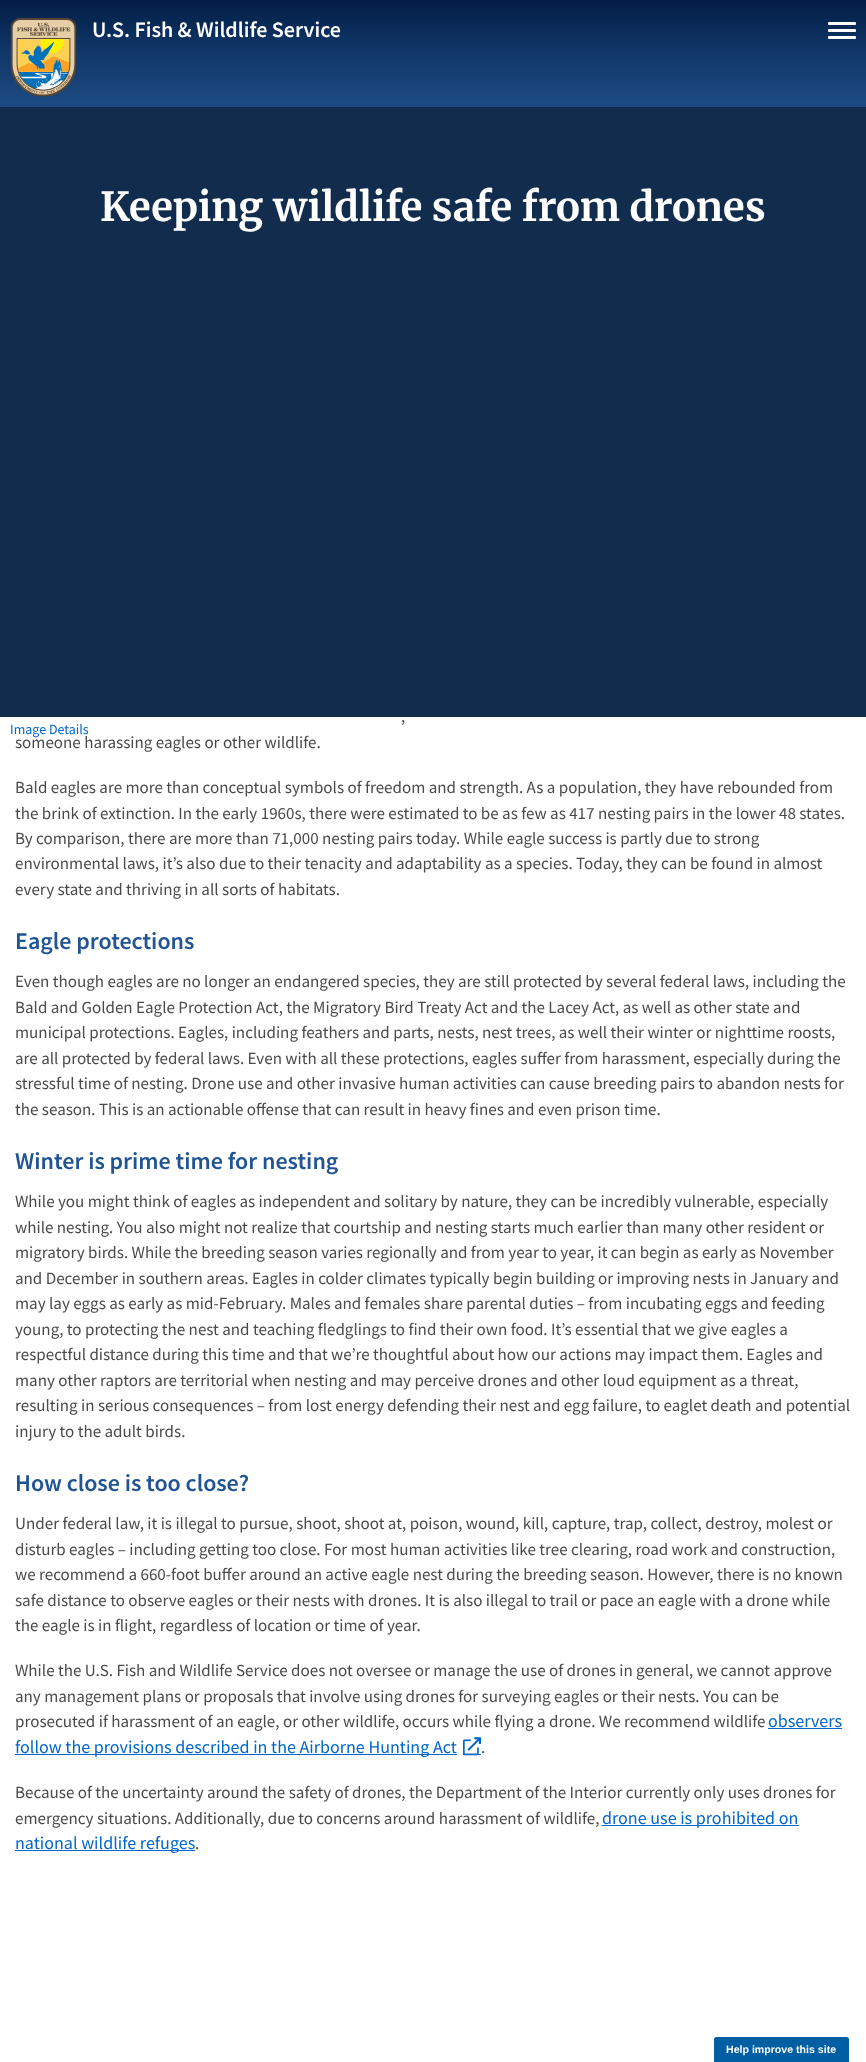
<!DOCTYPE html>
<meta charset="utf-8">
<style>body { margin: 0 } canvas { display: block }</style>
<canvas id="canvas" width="866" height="2062"></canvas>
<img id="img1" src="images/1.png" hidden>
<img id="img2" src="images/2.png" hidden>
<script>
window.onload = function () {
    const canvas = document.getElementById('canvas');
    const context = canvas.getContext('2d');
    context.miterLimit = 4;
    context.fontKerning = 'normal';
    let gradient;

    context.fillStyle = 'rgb(255, 255, 255)';
    context.fillRect(0, 0, 866, 2062);
    context.fillStyle = 'rgb(17, 44, 77)';
    context.fillRect(0, 44, 866, 673);
    gradient = context.createLinearGradient(433, 0, 433, 107);
    gradient.addColorStop(0, 'rgb(2, 29, 68)');
    gradient.addColorStop(0.4, 'rgb(14, 51, 99)');
    gradient.addColorStop(0.69, 'rgba(23, 67, 123, 0.8)');
    gradient.addColorStop(1, 'rgba(32, 84, 147, 0.8)');
    context.fillStyle = gradient;
    context.fillRect(0, 0, 866, 107);
    context.drawImage(document.getElementById('img1'), 10, 18, 67, 79);
    context.fillStyle = 'rgb(255, 255, 255)';
    context.beginPath();
    context.roundRect(828, 22, 28, 3, 1);
    context.fill();
    context.beginPath();
    context.roundRect(828, 29, 28, 3, 1);
    context.fill();
    context.beginPath();
    context.roundRect(828, 36, 28, 3, 1);
    context.fill();
    context.fillStyle = 'rgb(0, 102, 204)';
    context.fillRect(768, 1728, 74, 1);
    context.fillRect(15, 1754, 442, 1);
    context.fillRect(463, 1754, 18, 1);
    context.drawImage(document.getElementById('img2'), 463, 1737, 19, 19);
    context.fillRect(602, 1825, 197, 1);
    context.fillRect(15, 1850, 180, 1);
    context.fillStyle = 'rgb(0, 94, 162)';
    context.beginPath();
    context.roundRect(714, 2037, 135, 25, [2.5, 2.5, 0, 0]);
    context.fill();
    context.font = '600 22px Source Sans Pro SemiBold';
    context.fillStyle = 'rgb(255, 255, 255)';
    context.fillText('U.S. Fish & Wildlife Service', 92, 37);
    context.font = 'bold 40px Merriweather';
    context.fillText('Keeping wildlife safe from drones', 100, 221);
    context.font = '14px Source Sans Pro';
    context.fillStyle = 'rgb(0, 102, 204)';
    context.fillText('Image Details', 10, 734);
    context.font = '17px Source Sans Pro';
    context.fillStyle = 'rgb(74, 74, 74)';
    context.fillText(',', 401, 722);
    context.fillText('someone harassing eagles or other wildlife.', 15, 748);
    context.fillText('Bald eagles are more than conceptual symbols of freedom and strength. As a population, they have rebounded from', 15, 793);
    context.fillText('the brink of extinction. In the early 1960s, there were estimated to be as few as 417 nesting pairs in the lower 48 states.', 15, 819);
    context.fillText('By comparison, there are more than 71,000 nesting pairs today. While eagle success is partly due to strong', 15, 844);
    context.fillText('environmental laws, it’s also due to their tenacity and adaptability as a species. Today, they can be found in almost', 15, 869);
    context.fillText('every state and thriving in all sorts of habitats.', 15, 895);
    context.font = '600 24px Source Sans Pro SemiBold';
    context.fillStyle = 'rgb(32, 84, 147)';
    context.fillText('Eagle protections', 15, 949);
    context.font = '17px Source Sans Pro';
    context.fillStyle = 'rgb(74, 74, 74)';
    context.fillText('Even though eagles are no longer an endangered species, they are still protected by several federal laws, including the', 15, 987);
    context.fillText('Bald and Golden Eagle Protection Act, the Migratory Bird Treaty Act and the Lacey Act, as well as other state and', 15, 1013);
    context.fillText('municipal protections. Eagles, including feathers and parts, nests, nest trees, as well their winter or nighttime roosts,', 15, 1038);
    context.fillText('are all protected by federal laws. Even with all these protections, eagles suffer from harassment, especially during the', 15, 1064);
    context.fillText('stressful time of nesting. Drone use and other invasive human activities can cause breeding pairs to abandon nests for', 15, 1089);
    context.fillText('the season. This is an actionable offense that can result in heavy fines and even prison time.', 15, 1115);
    context.font = '600 24px Source Sans Pro SemiBold';
    context.fillStyle = 'rgb(32, 84, 147)';
    context.fillText('Winter is prime time for nesting', 15, 1169);
    context.font = '17px Source Sans Pro';
    context.fillStyle = 'rgb(74, 74, 74)';
    context.fillText('While you might think of eagles as independent and solitary by nature, they can be incredibly vulnerable, especially', 15, 1207);
    context.fillText('while nesting. You also might not realize that courtship and nesting starts much earlier than many other resident or', 15, 1233);
    context.fillText('migratory birds. While the breeding season varies regionally and from year to year, it can begin as early as November', 15, 1258);
    context.fillText('and December in southern areas. Eagles in colder climates typically begin building or improving nests in January and', 15, 1284);
    context.fillText('may lay eggs as early as mid-February. Males and females share parental duties – from incubating eggs and feeding', 15, 1309);
    context.fillText('young, to protecting the nest and teaching fledglings to find their own food. It’s essential that we give eagles a', 15, 1335);
    context.fillText('respectful distance during this time and that we’re thoughtful about how our actions may impact them. Eagles and', 15, 1360);
    context.fillText('many other raptors are territorial when nesting and may perceive drones and other loud equipment as a threat,', 15, 1386);
    context.fillText('resulting in serious consequences – from lost energy defending their nest and egg failure, to eaglet death and potential', 15, 1411);
    context.fillText('injury to the adult birds.', 15, 1437);
    context.font = '600 24px Source Sans Pro SemiBold';
    context.fillStyle = 'rgb(32, 84, 147)';
    context.fillText('How close is too close?', 15, 1491);
    context.font = '17px Source Sans Pro';
    context.fillStyle = 'rgb(74, 74, 74)';
    context.fillText('Under federal law, it is illegal to pursue, shoot, shoot at, poison, wound, kill, capture, trap, collect, destroy, molest or', 15, 1529);
    context.fillText('disturb eagles – including getting too close. For most human activities like tree clearing, road work and construction,', 15, 1555);
    context.fillText('we recommend a 660-foot buffer around an active eagle nest during the breeding season. However, there is no known', 15, 1580);
    context.fillText('safe distance to observe eagles or their nests with drones. It is also illegal to trail or pace an eagle with a drone while', 15, 1606);
    context.fillText('the eagle is in flight, regardless of location or time of year.', 15, 1631);
    context.fillText('While the U.S. Fish and Wildlife Service does not oversee or manage the use of drones in general, we cannot approve', 15, 1676);
    context.fillText('any management plans or proposals that involve using drones for surveying eagles or their nests. You can be', 15, 1702);
    context.fillText('prosecuted if harassment of an eagle, or other wildlife, occurs while flying a drone. We recommend wildlife', 15, 1727);
    context.font = '18.05px Source Sans Pro';
    context.fillStyle = 'rgb(0, 102, 204)';
    context.fillText('observers', 768, 1727);
    context.fillText('follow the provisions described in the Airborne Hunting Act', 15, 1753);
    context.font = '17px Source Sans Pro';
    context.fillStyle = 'rgb(74, 74, 74)';
    context.fillText('.', 481, 1753);
    context.fillText('Because of the uncertainty around the safety of drones, the Department of the Interior currently only uses drones for', 15, 1798);
    context.fillText('emergency situations. Additionally, due to concerns around harassment of wildlife,', 15, 1824);
    context.font = '18.05px Source Sans Pro';
    context.fillStyle = 'rgb(0, 102, 204)';
    context.fillText('drone use is prohibited on', 602, 1824);
    context.fillText('national wildlife refuges', 15, 1849);
    context.font = '17px Source Sans Pro';
    context.fillStyle = 'rgb(74, 74, 74)';
    context.fillText('.', 195, 1849);
    context.font = 'bold 10.6px Liberation Sans';
    context.fillStyle = 'rgb(255, 255, 255)';
    context.fillText('Help improve this site', 726, 2053);
};
</script>
